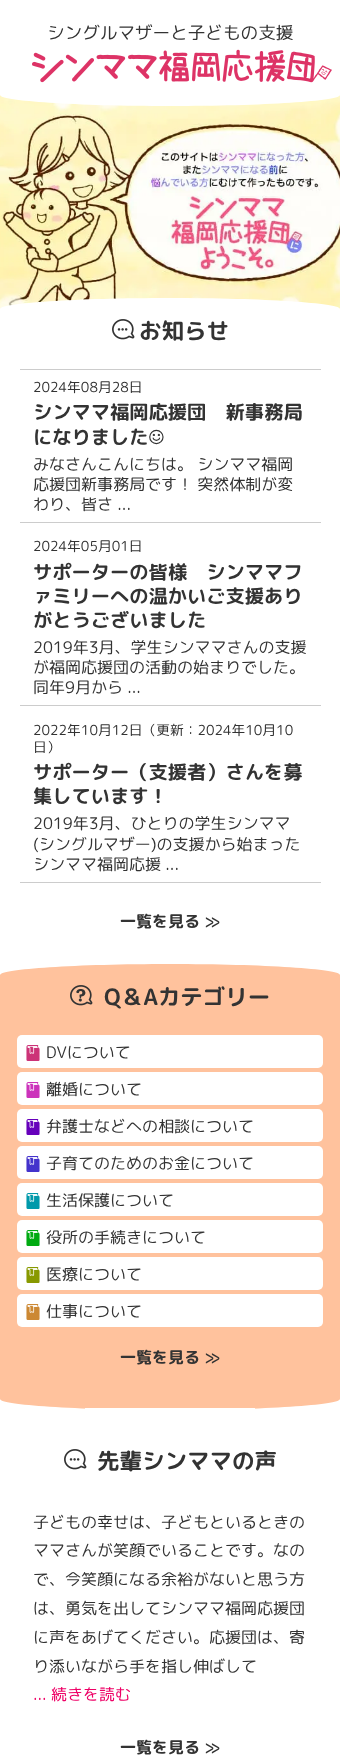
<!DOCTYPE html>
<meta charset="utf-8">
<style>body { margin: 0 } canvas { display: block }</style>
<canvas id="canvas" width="340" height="1755"></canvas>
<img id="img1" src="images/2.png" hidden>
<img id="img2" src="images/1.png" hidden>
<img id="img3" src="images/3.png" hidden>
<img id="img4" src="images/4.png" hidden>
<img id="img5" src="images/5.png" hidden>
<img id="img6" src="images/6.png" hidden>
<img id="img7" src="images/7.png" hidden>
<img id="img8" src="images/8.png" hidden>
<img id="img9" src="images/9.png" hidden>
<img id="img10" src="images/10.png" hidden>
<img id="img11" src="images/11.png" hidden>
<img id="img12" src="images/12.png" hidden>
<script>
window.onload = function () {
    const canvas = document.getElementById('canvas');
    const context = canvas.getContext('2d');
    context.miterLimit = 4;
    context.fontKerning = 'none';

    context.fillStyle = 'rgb(255, 255, 255)';
    context.fillRect(0, 0, 340, 1755);
    context.drawImage(document.getElementById('img1'), 0, 95, 340, 214);
    context.beginPath();
    context.moveTo(0, 0);
    context.lineTo(340, 0);
    context.lineTo(340, 95);
    context.bezierCurveTo(340, 101, 264, 106, 170, 106);
    context.bezierCurveTo(76, 106, 0, 101, 0, 95);
    context.closePath();
    context.fill();
    context.drawImage(document.getElementById('img2'), 32, 49, 300, 34);
    context.beginPath();
    context.moveTo(170, 298);
    context.bezierCurveTo(264, 298, 340, 303, 340, 309);
    context.lineTo(340, 1003);
    context.bezierCurveTo(340, 1009, 264, 1014, 170, 1014);
    context.bezierCurveTo(76, 1014, 0, 1009, 0, 1003);
    context.lineTo(0, 309);
    context.bezierCurveTo(0, 303, 76, 298, 170, 298);
    context.closePath();
    context.fill();
    context.drawImage(document.getElementById('img3'), 112, 319, 23, 21);
    context.fillStyle = 'rgb(204, 204, 204)';
    context.fillRect(20, 369, 301, 1);
    context.fillRect(20, 522, 301, 1);
    context.fillRect(20, 705, 301, 1);
    context.fillRect(20, 882, 301, 1);
    context.fillStyle = 'rgb(255, 194, 157)';
    context.beginPath();
    context.moveTo(170, 964);
    context.bezierCurveTo(264, 964, 340, 969, 340, 975);
    context.lineTo(340, 1399);
    context.bezierCurveTo(340, 1405, 264, 1410, 170, 1410);
    context.bezierCurveTo(76, 1410, 0, 1405, 0, 1399);
    context.lineTo(0, 975);
    context.bezierCurveTo(0, 969, 76, 964, 170, 964);
    context.closePath();
    context.fill();
    context.fillStyle = 'rgb(255, 255, 255)';
    context.fillRect(85, 1408, 170, 2);
    context.drawImage(document.getElementById('img4'), 70, 985, 23, 21);
    context.beginPath();
    context.roundRect(17, 1035, 306, 33, 5);
    context.fill();
    context.drawImage(document.getElementById('img5'), 26, 1045, 14, 16);
    context.beginPath();
    context.roundRect(17, 1072, 306, 33, 5);
    context.fill();
    context.drawImage(document.getElementById('img6'), 26, 1082, 14, 16);
    context.beginPath();
    context.roundRect(17, 1109, 306, 33, 5);
    context.fill();
    context.drawImage(document.getElementById('img7'), 26, 1119, 14, 16);
    context.beginPath();
    context.roundRect(17, 1146, 306, 33, 5);
    context.fill();
    context.drawImage(document.getElementById('img8'), 26, 1156, 14, 16);
    context.beginPath();
    context.roundRect(17, 1183, 306, 33, 5);
    context.fill();
    context.drawImage(document.getElementById('img9'), 26, 1193, 14, 16);
    context.beginPath();
    context.roundRect(17, 1220, 306, 33, 5);
    context.fill();
    context.drawImage(document.getElementById('img10'), 26, 1230, 14, 16);
    context.beginPath();
    context.roundRect(17, 1257, 306, 33, 5);
    context.fill();
    context.drawImage(document.getElementById('img11'), 26, 1267, 14, 16);
    context.beginPath();
    context.roundRect(17, 1294, 306, 33, 5);
    context.fill();
    context.drawImage(document.getElementById('img12'), 26, 1304, 14, 16);
    context.drawImage(document.getElementById('img3'), 64, 1449, 23, 21);
    context.font = '17.6px "Rounded Mplus 1c"';
    context.fillStyle = 'rgb(51, 51, 51)';
    context.fillText('シングルマザーと子どもの支援', 47, 39);
    context.font = 'bold 22.5px "Rounded Mplus 1c Bold"';
    context.fillText('お知らせ', 139, 339);
    context.font = '13.75px "Rounded Mplus 1c"';
    context.fillText('2024年08月28日', 33, 392);
    context.font = 'bold 19.25px "Rounded Mplus 1c Bold"';
    context.fillText('シンママ福岡応援団　新事務局', 33, 419);
    context.fillText('になりました☺', 33, 444);
    context.font = '16px "Rounded Mplus 1c"';
    context.fillText('みなさんこんにちは。 シンママ福岡', 33, 470);
    context.fillText('応援団新事務局です！ 突然体制が変', 33, 490);
    context.fillText('わり、皆さ ...', 33, 510);
    context.font = '13.75px "Rounded Mplus 1c"';
    context.fillText('2024年05月01日', 33, 551);
    context.font = 'bold 19.25px "Rounded Mplus 1c Bold"';
    context.fillText('サポーターの皆様　シンママフ', 33, 579);
    context.fillText('ァミリーへの温かいご支援あり', 33, 603);
    context.fillText('がとうございました', 33, 627);
    context.font = '16px "Rounded Mplus 1c"';
    context.fillText('2019年3月、学生シンママさんの支援', 33, 653);
    context.fillText('が福岡応援団の活動の始まりでした。', 33, 673);
    context.fillText('同年9月から ...', 33, 693);
    context.font = '13.75px "Rounded Mplus 1c"';
    context.fillText('2022年10月12日（更新：2024年10月10', 33, 735);
    context.fillText('日）', 33, 752);
    context.font = 'bold 19.25px "Rounded Mplus 1c Bold"';
    context.fillText('サポーター（支援者）さんを募', 33, 779);
    context.fillText('集しています！', 33, 803);
    context.font = '16px "Rounded Mplus 1c"';
    context.fillText('2019年3月、ひとりの学生シンママ', 33, 829);
    context.fillText('(シングルマザー)の支援から始まった', 33, 850);
    context.fillText('シンママ福岡応援 ...', 33, 870);
    context.font = 'bold 16px "Rounded Mplus 1c Bold"';
    context.fillText('一覧を見る ≫', 120, 927);
    context.font = 'bold 22.5px "Rounded Mplus 1c Bold"';
    context.fillText('Q＆Aカテゴリー', 104, 1005);
    context.font = '16px "Rounded Mplus 1c"';
    context.fillText('DVについて', 46, 1058);
    context.fillText('離婚について', 46, 1095);
    context.fillText('弁護士などへの相談について', 46, 1132);
    context.fillText('子育てのためのお金について', 46, 1169);
    context.fillText('生活保護について', 46, 1206);
    context.fillText('役所の手続きについて', 46, 1243);
    context.fillText('医療について', 46, 1280);
    context.fillText('仕事について', 46, 1317);
    context.font = 'bold 16px "Rounded Mplus 1c Bold"';
    context.fillText('一覧を見る ≫', 120, 1363);
    context.font = 'bold 22.5px "Rounded Mplus 1c Bold"';
    context.fillText('先輩シンママの声', 97, 1469);
    context.font = '16px "Rounded Mplus 1c"';
    context.fillText('子どもの幸せは、子どもといるときの', 33, 1528);
    context.fillText('ママさんが笑顔でいることです。なの', 33, 1556);
    context.fillText('で、今笑顔になる余裕がないと思う方', 33, 1585);
    context.fillText('は、勇気を出してシンママ福岡応援団', 33, 1614);
    context.fillText('に声をあげてください。応援団は、寄', 33, 1643);
    context.fillText('り添いながら手を指し伸ばして', 33, 1672);
    context.fillStyle = 'rgb(238, 0, 102)';
    context.fillText('... 続きを読む', 33, 1700);
    context.font = 'bold 16px "Rounded Mplus 1c Bold"';
    context.fillStyle = 'rgb(51, 51, 51)';
    context.fillText('一覧を見る ≫', 120, 1753);
};
</script>
